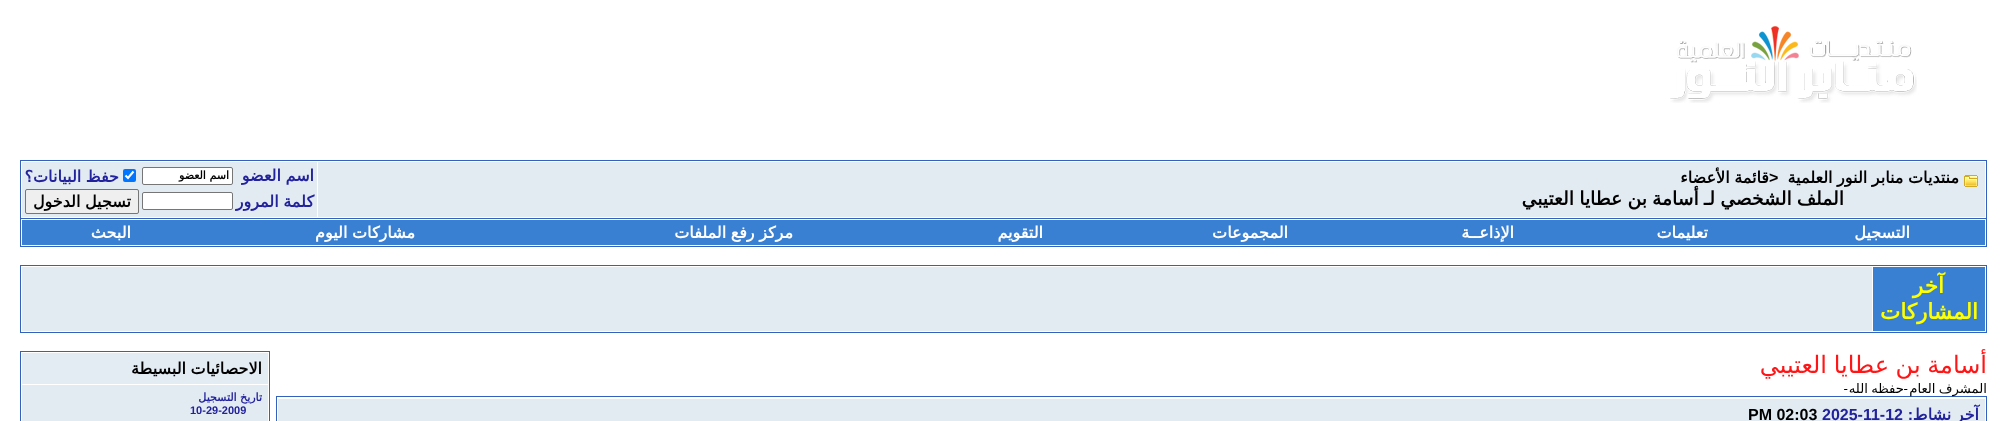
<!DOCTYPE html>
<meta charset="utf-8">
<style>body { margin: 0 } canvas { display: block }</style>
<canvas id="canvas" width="2007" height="421"></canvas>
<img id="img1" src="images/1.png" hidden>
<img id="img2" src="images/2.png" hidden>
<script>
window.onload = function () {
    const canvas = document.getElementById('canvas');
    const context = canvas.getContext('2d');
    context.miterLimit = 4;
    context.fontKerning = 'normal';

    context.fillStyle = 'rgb(255, 255, 255)';
    context.fillRect(0, 0, 2007, 421);
    context.drawImage(document.getElementById('img1'), 1670, 26, 247, 77);
    context.strokeStyle = 'rgb(50, 98, 189)';
    context.strokeRect(20.5, 160.5, 1966, 58);
    context.fillStyle = 'rgb(226, 234, 242)';
    context.fillRect(318, 162, 1667, 55);
    context.drawImage(document.getElementById('img2'), 1964, 175, 14, 12);
    context.fillRect(22, 162, 295, 55);
    context.fillStyle = 'rgb(255, 255, 255)';
    context.beginPath();
    context.roundRect(142.5, 167.5, 90, 17, 1.5);
    context.fill();
    context.strokeStyle = 'rgb(118, 118, 118)';
    context.stroke();
    context.fillStyle = 'rgb(0, 117, 255)';
    context.beginPath();
    context.roundRect(123, 169, 13, 13, 2);
    context.fill();
    context.beginPath();
    context.moveTo(125.5, 175.5);
    context.lineTo(128, 178);
    context.lineTo(133.5, 171.5);
    context.strokeStyle = 'rgb(255, 255, 255)';
    context.lineWidth = 2.1;
    context.stroke();
    context.fillStyle = 'rgb(255, 255, 255)';
    context.beginPath();
    context.roundRect(142.5, 192.5, 90, 17, 1.5);
    context.fill();
    context.strokeStyle = 'rgb(118, 118, 118)';
    context.lineWidth = 1;
    context.stroke();
    context.fillStyle = 'rgb(239, 239, 239)';
    context.beginPath();
    context.roundRect(25.5, 189.5, 113, 24, 1.5);
    context.fill();
    context.stroke();
    context.fillStyle = 'rgb(50, 98, 189)';
    context.fillRect(1986, 219, 1, 28);
    context.fillRect(20, 246, 1967, 1);
    context.fillRect(20, 219, 1, 28);
    context.fillStyle = 'rgb(57, 128, 210)';
    context.fillRect(22, 220, 1963, 25);
    context.strokeStyle = 'rgb(50, 98, 189)';
    context.strokeRect(20.5, 265.5, 1966, 67);
    context.fillRect(1873, 267, 112, 64);
    context.fillStyle = 'rgb(226, 234, 242)';
    context.fillRect(22, 267, 1850, 64);
    context.strokeRect(276.5, 396.5, 1710, 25);
    context.fillRect(278, 399, 1707, 22);
    context.strokeRect(20.5, 351.5, 249, 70);
    context.fillStyle = 'rgb(227, 235, 243)';
    context.fillRect(22, 353, 246, 31);
    context.fillStyle = 'rgb(226, 234, 242)';
    context.fillRect(22, 385, 246, 36);
    context.wordSpacing = '-0.5px';
    context.direction = 'rtl';
    context.font = 'bold 16px DejaVu Sans';
    context.fillStyle = 'rgb(0, 0, 0)';
    context.fillText('منتديات منابر النور العلمية', 1959, 183);
    context.wordSpacing = '0px';
    context.direction = 'ltr';
    context.font = 'bold 16px Liberation Sans';
    context.fillText('>', 1769, 183);
    context.wordSpacing = '-0.5px';
    context.direction = 'rtl';
    context.font = 'bold 16px DejaVu Sans';
    context.fillText('قائمة الأعضاء', 1769, 183);
    context.wordSpacing = '-0.75px';
    context.font = 'bold 18.7px DejaVu Sans';
    context.fillText('الملف الشخصي لـ أسامة بن عطايا العتيبي', 1844, 205);
    context.wordSpacing = '-0.5px';
    context.font = 'bold 16px DejaVu Sans';
    context.fillStyle = 'rgb(34, 34, 156)';
    context.fillText('اسم العضو', 314, 181);
    context.wordSpacing = '0px';
    context.font = 'bold 11px DejaVu Sans';
    context.fillStyle = 'rgb(0, 0, 0)';
    context.fillText('اسم العضو', 229, 179);
    context.wordSpacing = '-0.5px';
    context.font = 'bold 16px DejaVu Sans';
    context.fillStyle = 'rgb(34, 34, 156)';
    context.fillText('حفظ البيانات؟', 119, 182);
    context.fillText('كلمة المرور', 314, 207);
    context.fillStyle = 'rgb(0, 0, 0)';
    context.fillText('تسجيل الدخول', 131, 207);
    context.wordSpacing = '0px';
    context.fillStyle = 'rgb(255, 255, 255)';
    context.fillText('التسجيل', 1910, 238);
    context.fillText('تعليمات', 1708, 238);
    context.fillText('الإذاعــة', 1514, 238);
    context.fillText('المجموعات', 1288, 238);
    context.fillText('التقويم', 1043, 238);
    context.wordSpacing = '-0.5px';
    context.fillText('مركز رفع الملفات', 793, 238);
    context.fillText('مشاركات اليوم', 415, 238);
    context.wordSpacing = '0px';
    context.fillText('البحث', 131, 238);
    context.font = 'bold 21.5px DejaVu Sans';
    context.fillStyle = 'rgb(255, 255, 0)';
    context.fillText('آخر', 1944, 293);
    context.fillText('المشاركات', 1978, 319);
    context.wordSpacing = '-1px';
    context.font = '24px DejaVu Sans';
    context.fillStyle = 'rgb(255, 21, 21)';
    context.fillText('أسامة بن عطايا العتيبي', 1987, 373);
    context.font = '13.25px DejaVu Sans';
    context.fillStyle = 'rgb(0, 0, 0)';
    context.fillText('المشرف العام', 1987, 393);
    context.wordSpacing = '0px';
    context.font = '13.25px Liberation Sans';
    context.fillText('-', 1908, 393);
    context.wordSpacing = '-1px';
    context.font = '13.25px DejaVu Sans';
    context.fillText('حفظه الله', 1904, 393);
    context.wordSpacing = '0px';
    context.font = '13.25px Liberation Sans';
    context.fillText('-', 1848, 393);
    context.wordSpacing = '-0.5px';
    context.font = 'bold 16px DejaVu Sans';
    context.fillStyle = 'rgb(34, 34, 156)';
    context.fillText('آخر نشاط', 1979, 420);
    context.wordSpacing = '0px';
    context.font = 'bold 16px Liberation Sans';
    context.fillText(':', 1913, 420);
    context.direction = 'ltr';
    context.fillText('2025-11-12', 1822, 420);
    context.fillStyle = 'rgb(0, 0, 0)';
    context.fillText('PM 02:03', 1748, 420);
    context.wordSpacing = '-0.5px';
    context.direction = 'rtl';
    context.font = 'bold 16px DejaVu Sans';
    context.fillText('الاحصائيات البسيطة', 262, 374);
    context.wordSpacing = '0px';
    context.font = 'bold 11px DejaVu Sans';
    context.fillStyle = 'rgb(34, 34, 156)';
    context.fillText('تاريخ التسجيل', 262, 401);
    context.direction = 'ltr';
    context.font = 'bold 11px Liberation Sans';
    context.fillText('10-29-2009', 190, 414);
};
</script>
